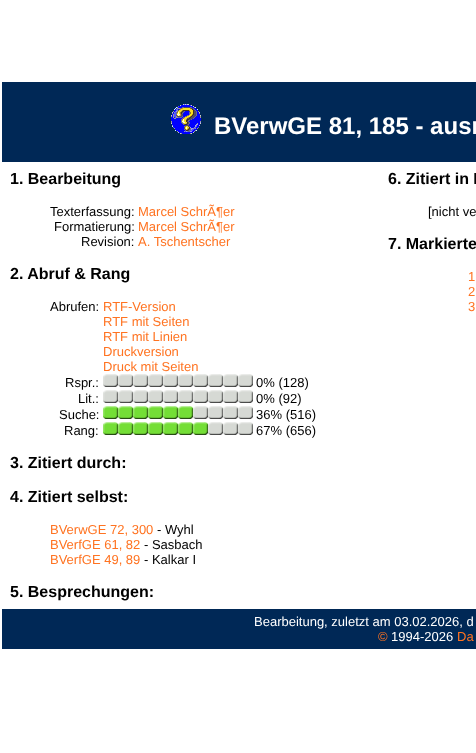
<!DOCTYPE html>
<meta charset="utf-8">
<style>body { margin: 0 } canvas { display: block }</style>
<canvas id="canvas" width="476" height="753"></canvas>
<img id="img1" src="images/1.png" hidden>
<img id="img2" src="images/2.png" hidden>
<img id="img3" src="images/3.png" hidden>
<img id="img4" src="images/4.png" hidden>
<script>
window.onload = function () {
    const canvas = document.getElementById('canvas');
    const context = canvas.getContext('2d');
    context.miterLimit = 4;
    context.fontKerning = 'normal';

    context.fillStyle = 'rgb(255, 255, 255)';
    context.fillRect(0, 0, 476, 753);
    context.fillStyle = 'rgb(0, 40, 86)';
    context.fillRect(2, 82, 474, 80);
    context.drawImage(document.getElementById('img1'), 171, 104, 30, 30);
    context.drawImage(document.getElementById('img2'), 103, 374, 150, 13);
    context.drawImage(document.getElementById('img2'), 103, 390, 150, 13);
    context.drawImage(document.getElementById('img3'), 103, 406, 150, 13);
    context.drawImage(document.getElementById('img4'), 103, 422, 150, 13);
    context.fillRect(2, 609, 474, 40);
    context.font = 'bold 24px Liberation Sans';
    context.fillStyle = 'rgb(255, 255, 255)';
    context.fillText('BVerwGE 81, 185 - ausr', 214, 134);
    context.font = 'bold 16px Liberation Sans';
    context.fillStyle = 'rgb(0, 0, 0)';
    context.fillText('1. Bearbeitung', 10, 184);
    context.font = '13px Liberation Sans';
    context.fillText('Texterfassung:', 50, 216);
    context.fillStyle = 'rgb(255, 115, 33)';
    context.fillText('Marcel SchrÃ¶er', 138, 216);
    context.fillStyle = 'rgb(0, 0, 0)';
    context.fillText('Formatierung:', 54, 231);
    context.fillStyle = 'rgb(255, 115, 33)';
    context.fillText('Marcel SchrÃ¶er', 138, 231);
    context.fillStyle = 'rgb(0, 0, 0)';
    context.fillText('Revision:', 81, 246);
    context.fillStyle = 'rgb(255, 115, 33)';
    context.fillText('A. Tschentscher', 138, 246);
    context.font = 'bold 16px Liberation Sans';
    context.fillStyle = 'rgb(0, 0, 0)';
    context.fillText('2. Abruf & Rang', 10, 279);
    context.font = '13px Liberation Sans';
    context.fillText('Abrufen:', 50, 311);
    context.fillStyle = 'rgb(255, 115, 33)';
    context.fillText('RTF-Version', 103, 311);
    context.fillText('RTF mit Seiten', 103, 326);
    context.fillText('RTF mit Linien', 103, 341);
    context.fillText('Druckversion', 103, 356);
    context.fillText('Druck mit Seiten', 103, 371);
    context.fillStyle = 'rgb(0, 0, 0)';
    context.fillText('Rspr.:', 65, 387);
    context.fillText('0% (128)', 256, 387);
    context.fillText('Lit.:', 78, 403);
    context.fillText('0% (92)', 256, 403);
    context.fillText('Suche:', 59, 419);
    context.fillText('36% (516)', 256, 419);
    context.fillText('Rang:', 64, 435);
    context.fillText('67% (656)', 256, 435);
    context.font = 'bold 16px Liberation Sans';
    context.fillText('3. Zitiert durch:', 10, 468);
    context.fillText('4. Zitiert selbst:', 10, 502);
    context.font = '13px Liberation Sans';
    context.fillStyle = 'rgb(255, 115, 33)';
    context.fillText('BVerwGE 72, 300', 50, 534);
    context.fillStyle = 'rgb(0, 0, 0)';
    context.fillText('- Wyhl', 157, 534);
    context.fillStyle = 'rgb(255, 115, 33)';
    context.fillText('BVerfGE 61, 82', 50, 549);
    context.fillStyle = 'rgb(0, 0, 0)';
    context.fillText('- Sasbach', 144, 549);
    context.fillStyle = 'rgb(255, 115, 33)';
    context.fillText('BVerfGE 49, 89', 50, 564);
    context.fillStyle = 'rgb(0, 0, 0)';
    context.fillText('- Kalkar I', 144, 564);
    context.font = 'bold 16px Liberation Sans';
    context.fillText('5. Besprechungen:', 10, 597);
    context.fillText('6. Zitiert in L', 388, 184);
    context.font = '13px Liberation Sans';
    context.fillText('[nicht ve', 428, 216);
    context.font = 'bold 16px Liberation Sans';
    context.fillText('7. Markierte', 388, 249);
    context.font = '13px Liberation Sans';
    context.fillStyle = 'rgb(255, 115, 33)';
    context.fillText('1', 468, 281);
    context.fillText('2', 468, 296);
    context.fillText('3', 468, 311);
    context.fillStyle = 'rgb(255, 255, 255)';
    context.fillText('Bearbeitung, zuletzt am 03.02.2026, d', 254, 626);
    context.fillStyle = 'rgb(255, 115, 33)';
    context.fillText('©', 378, 641);
    context.fillStyle = 'rgb(255, 255, 255)';
    context.fillText('1994-2026', 391, 641);
    context.fillStyle = 'rgb(255, 115, 33)';
    context.fillText('Da', 457, 641);
};
</script>
